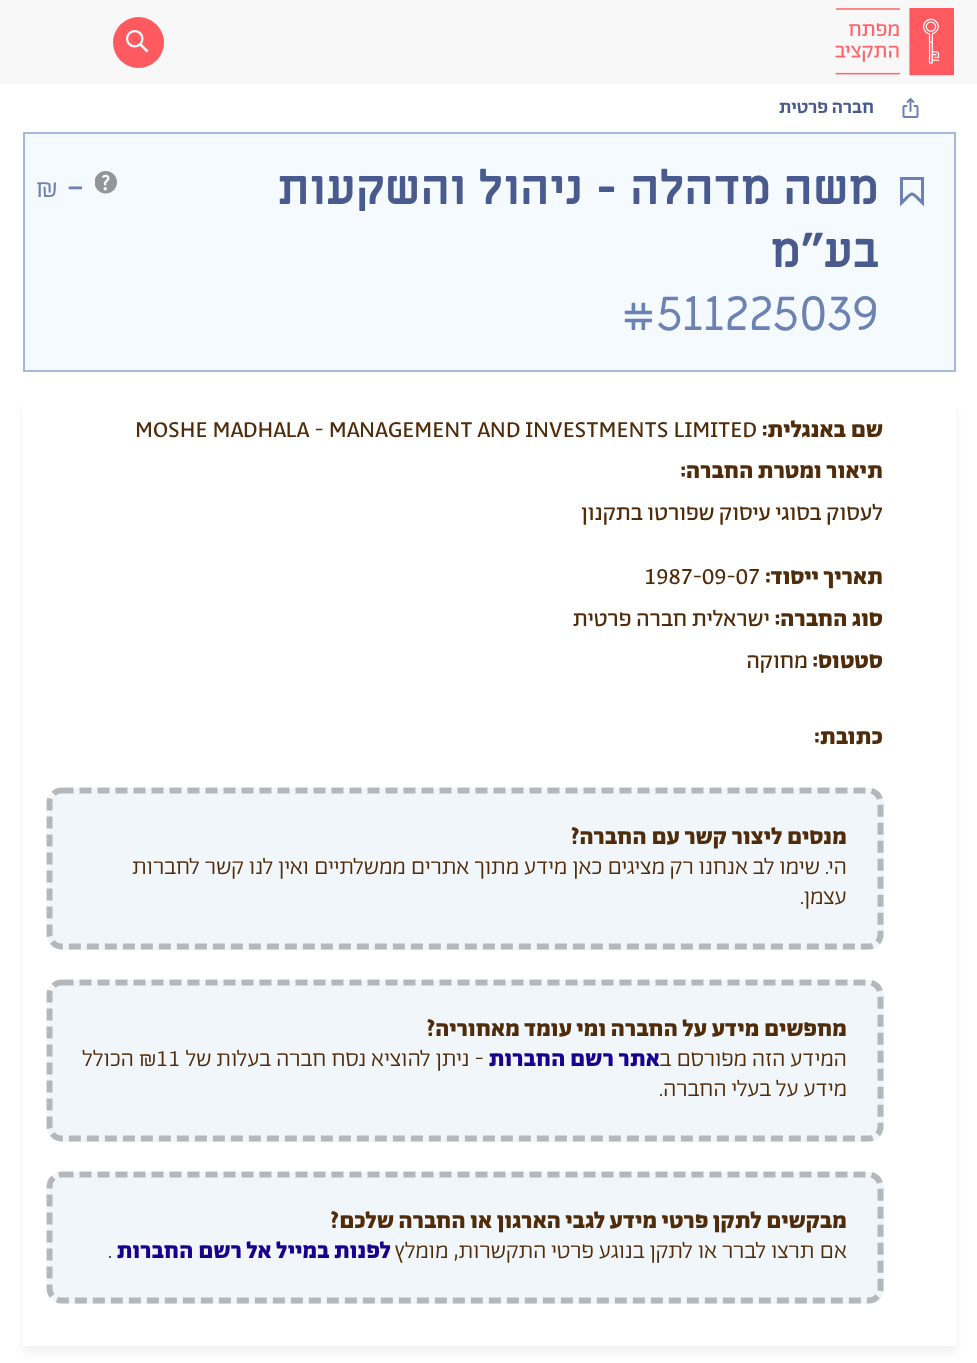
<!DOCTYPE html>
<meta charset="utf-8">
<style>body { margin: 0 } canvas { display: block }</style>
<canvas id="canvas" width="977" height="1363"></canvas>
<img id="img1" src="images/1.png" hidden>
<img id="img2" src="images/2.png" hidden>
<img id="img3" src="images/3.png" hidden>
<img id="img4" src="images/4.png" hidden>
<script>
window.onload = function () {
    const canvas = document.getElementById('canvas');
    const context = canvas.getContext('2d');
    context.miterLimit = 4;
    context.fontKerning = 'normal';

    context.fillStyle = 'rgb(255, 255, 255)';
    context.fillRect(0, 0, 977, 1363);
    context.fillStyle = 'rgb(248, 248, 248)';
    context.fillRect(0, 0, 977, 84);
    context.drawImage(document.getElementById('img1'), 835, 8, 119, 68);
    context.fillStyle = 'rgb(255, 90, 95)';
    context.beginPath();
    context.arc(138.5, 42.5, 25.5, 0, 2 * Math.PI);
    context.fill();
    context.drawImage(document.getElementById('img2'), 126, 30, 23, 23);
    context.drawImage(document.getElementById('img3'), 902, 98, 17, 20);
    context.fillStyle = 'rgb(245, 250, 255)';
    context.beginPath();
    context.rect(24, 133, 931, 238);
    context.fill();
    context.strokeStyle = 'rgb(165, 185, 218)';
    context.lineWidth = 2;
    context.stroke();
    context.beginPath();
    context.moveTo(901.5, 178.5);
    context.lineTo(922.5, 178.5);
    context.lineTo(922.5, 203);
    context.bezierCurveTo(910.5, 191, 913.5, 191, 901.5, 203);
    context.closePath();
    context.strokeStyle = 'rgb(109, 130, 180)';
    context.lineWidth = 3;
    context.stroke();
    context.drawImage(document.getElementById('img4'), 95, 171, 22, 23);
    context.save();
    context.beginPath();
    context.moveTo(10, 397);
    context.lineTo(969, 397);
    context.lineTo(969, 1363);
    context.lineTo(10, 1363);
    context.closePath();
    context.moveTo(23, 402);
    context.lineTo(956, 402);
    context.lineTo(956, 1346);
    context.lineTo(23, 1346);
    context.closePath();
    context.clip('evenodd');
    context.fillStyle = 'rgba(0, 0, 0, 0.05)';
    context.filter = 'blur(4px)';
    context.beginPath();
    context.rect(23, 410, 933, 943);
    context.fill();
    context.filter = 'none';
    context.restore();
    context.fillStyle = 'rgb(240, 246, 250)';
    context.beginPath();
    context.roundRect(47, 788, 837, 162, 15);
    context.fill();
    context.beginPath();
    context.moveTo(61.5, 790.5);
    context.lineTo(868.5, 790.5);
    context.bezierCurveTo(875, 790.5, 880.5, 796, 880.5, 802.5);
    context.lineTo(880.5, 934.5);
    context.bezierCurveTo(880.5, 941, 875, 946.5, 868.5, 946.5);
    context.lineTo(61.5, 946.5);
    context.bezierCurveTo(55, 946.5, 49.5, 941, 49.5, 934.5);
    context.lineTo(49.5, 802.5);
    context.bezierCurveTo(49.5, 796, 55, 790.5, 61.5, 790.5);
    context.closePath();
    context.strokeStyle = 'rgba(0, 0, 0, 0.25)';
    context.lineWidth = 6;
    context.setLineDash([12, 6]);
    context.stroke();
    context.beginPath();
    context.roundRect(47, 980, 837, 162, 15);
    context.fill();
    context.beginPath();
    context.moveTo(61.5, 982.5);
    context.lineTo(868.5, 982.5);
    context.bezierCurveTo(875, 982.5, 880.5, 988, 880.5, 994.5);
    context.lineTo(880.5, 1126.5);
    context.bezierCurveTo(880.5, 1133, 875, 1138.5, 868.5, 1138.5);
    context.lineTo(61.5, 1138.5);
    context.bezierCurveTo(55, 1138.5, 49.5, 1133, 49.5, 1126.5);
    context.lineTo(49.5, 994.5);
    context.bezierCurveTo(49.5, 988, 55, 982.5, 61.5, 982.5);
    context.closePath();
    context.stroke();
    context.beginPath();
    context.roundRect(47, 1172, 837, 132, 15);
    context.fill();
    context.beginPath();
    context.moveTo(61.5, 1174.5);
    context.lineTo(868.5, 1174.5);
    context.bezierCurveTo(875, 1174.5, 880.5, 1180, 880.5, 1186.5);
    context.lineTo(880.5, 1288.5);
    context.bezierCurveTo(880.5, 1295, 875, 1300.5, 868.5, 1300.5);
    context.lineTo(61.5, 1300.5);
    context.bezierCurveTo(55, 1300.5, 49.5, 1295, 49.5, 1288.5);
    context.lineTo(49.5, 1186.5);
    context.bezierCurveTo(49.5, 1180, 55, 1174.5, 61.5, 1174.5);
    context.closePath();
    context.stroke();
    context.direction = 'rtl';
    context.font = '500 19.5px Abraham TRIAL';
    context.fillStyle = 'rgb(73, 90, 143)';
    context.fillText('חברה פרטית', 874, 113);
    context.font = 'bold 48px Miriam Libre';
    context.fillText('משה מדהלה - ניהול והשקעות', 879, 204);
    context.fillText('בע״מ', 879, 267);
    context.direction = 'ltr';
    context.font = '48px Miriam Libre';
    context.fillStyle = 'rgb(109, 130, 180)';
    context.fillText('#511225039', 620, 330);
    context.font = '300 48px Abraham TRIAL';
    context.fillText('-', 66, 203);
    context.font = '300 30px Abraham TRIAL';
    context.fillText('₪', 36, 197);
    context.direction = 'rtl';
    context.font = 'bold 24px Abraham TRIAL';
    context.fillStyle = 'rgb(81, 44, 10)';
    context.fillText('שם באנגלית:', 883, 437);
    context.direction = 'ltr';
    context.font = '24px Abraham TRIAL';
    context.fillText('MOSHE MADHALA - MANAGEMENT AND INVESTMENTS LIMITED', 135, 437);
    context.direction = 'rtl';
    context.font = 'bold 24px Abraham TRIAL';
    context.fillText('תיאור ומטרת החברה:', 883, 478);
    context.font = '24px Abraham TRIAL';
    context.fillText('לעסוק בסוגי עיסוק שפורטו בתקנון', 883, 520);
    context.font = 'bold 24px Abraham TRIAL';
    context.fillText('תאריך ייסוד:', 883, 584);
    context.direction = 'ltr';
    context.font = '24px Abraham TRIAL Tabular';
    context.fillText('1987-09-07', 644, 584);
    context.direction = 'rtl';
    context.font = 'bold 24px Abraham TRIAL';
    context.fillText('סוג החברה:', 883, 626);
    context.font = '24px Abraham TRIAL';
    context.fillText('ישראלית חברה פרטית', 770, 626);
    context.font = 'bold 24px Abraham TRIAL';
    context.fillText('סטטוס:', 883, 668);
    context.font = '24px Abraham TRIAL';
    context.fillText('מחוקה', 808, 668);
    context.font = 'bold 24px Abraham TRIAL';
    context.fillText('כתובת:', 883, 744);
    context.fillText('מנסים ליצור קשר עם החברה?', 847, 844);
    context.font = '300 24px Abraham TRIAL';
    context.fillText('הי. שימו לב אנחנו רק מציגים כאן מידע מתוך אתרים ממשלתיים ואין לנו קשר לחברות', 847, 874);
    context.fillText('עצמן.', 847, 904);
    context.font = 'bold 24px Abraham TRIAL';
    context.fillText('מחפשים מידע על החברה ומי עומד מאחוריה?', 847, 1036);
    context.font = '300 24px Abraham TRIAL';
    context.fillText('המידע הזה מפורסם ב', 847, 1066);
    context.font = 'bold 24px Abraham TRIAL';
    context.fillStyle = 'rgb(25, 0, 143)';
    context.fillText('אתר רשם החברות', 660, 1066);
    context.font = '300 24px Abraham TRIAL';
    context.fillStyle = 'rgb(81, 44, 10)';
    context.fillText('- ניתן להוציא נסח חברה בעלות של', 484, 1066);
    context.direction = 'ltr';
    context.font = '300 24px Abraham TRIAL Tabular';
    context.fillText('₪11', 139, 1066);
    context.direction = 'rtl';
    context.font = '300 24px Abraham TRIAL';
    context.fillText('הכולל', 134, 1066);
    context.fillText('מידע על בעלי החברה.', 847, 1096);
    context.font = 'bold 24px Abraham TRIAL';
    context.fillText('מבקשים לתקן פרטי מידע לגבי הארגון או החברה שלכם?', 847, 1228);
    context.font = '300 24px Abraham TRIAL';
    context.fillText('אם תרצו לברר או לתקן בנוגע פרטי התקשרות, מומלץ', 847, 1258);
    context.font = 'bold 24px Abraham TRIAL';
    context.fillStyle = 'rgb(25, 0, 143)';
    context.fillText('לפנות במייל אל רשם החברות', 391, 1258);
    context.direction = 'ltr';
    context.font = '300 24px Abraham TRIAL';
    context.fillStyle = 'rgb(81, 44, 10)';
    context.fillText('.', 108, 1258);
};
</script>
